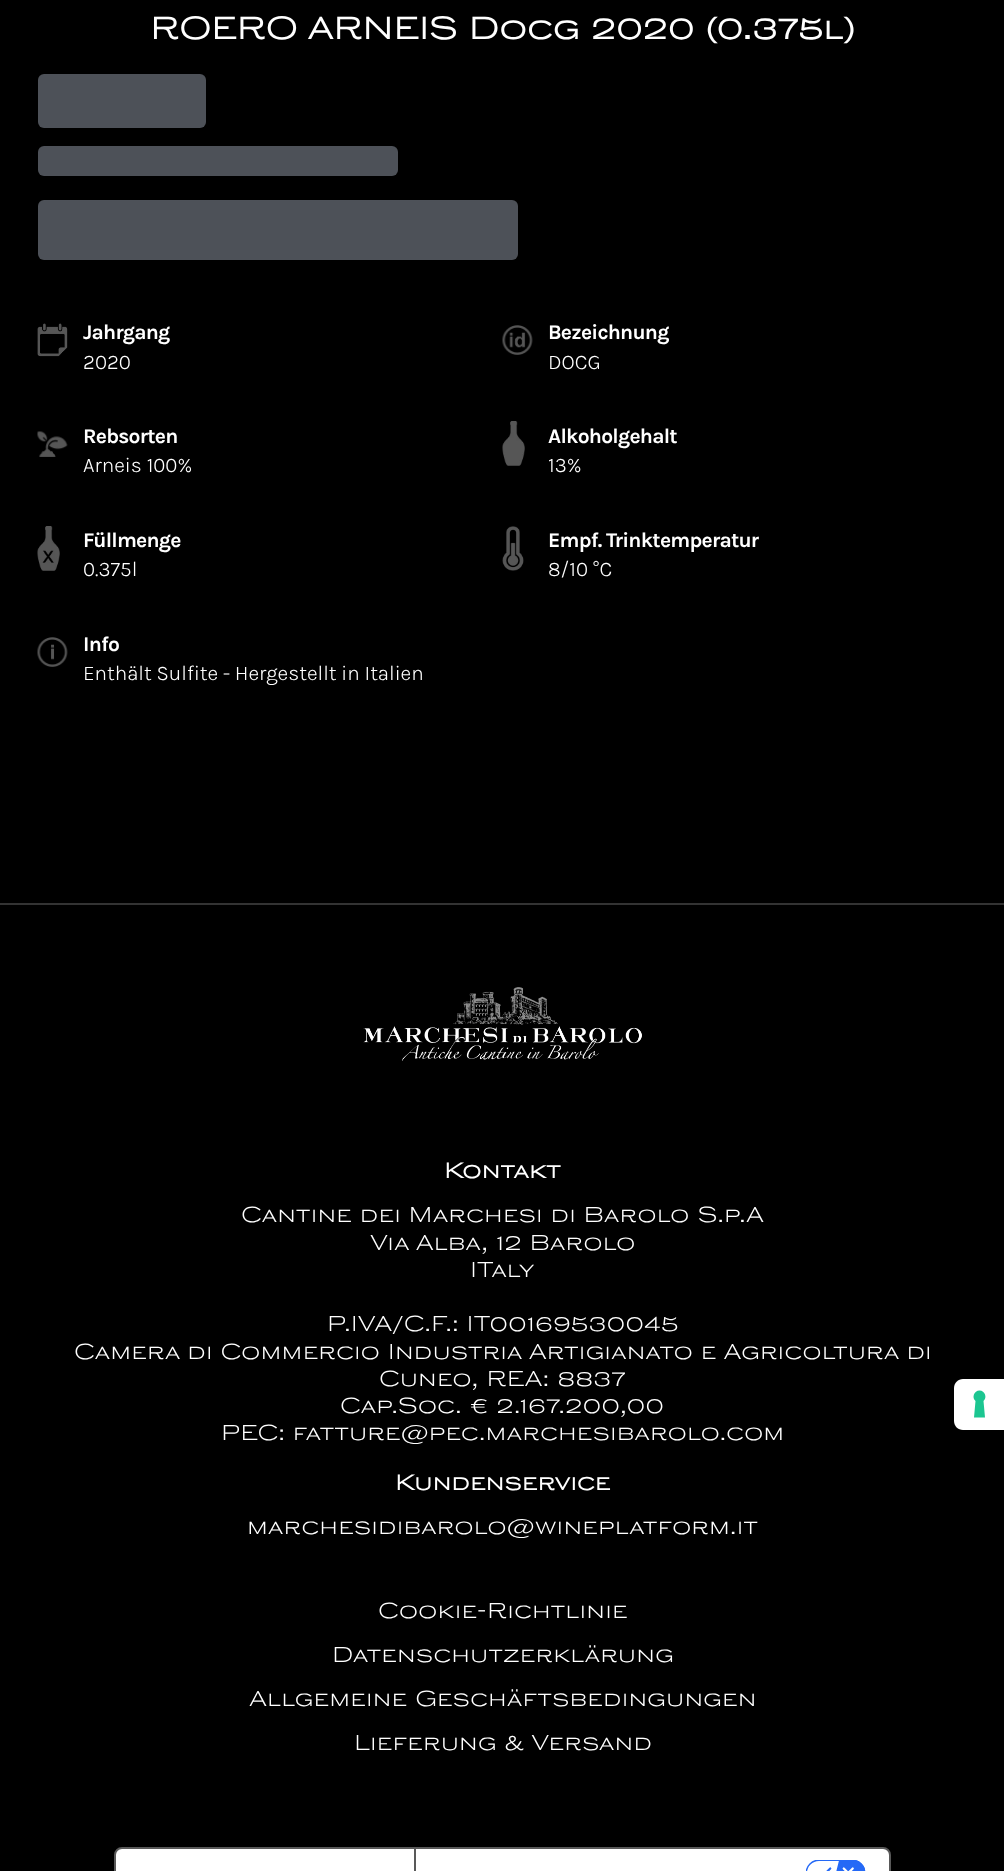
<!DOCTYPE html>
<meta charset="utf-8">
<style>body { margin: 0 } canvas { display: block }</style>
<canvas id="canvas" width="1004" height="1871"></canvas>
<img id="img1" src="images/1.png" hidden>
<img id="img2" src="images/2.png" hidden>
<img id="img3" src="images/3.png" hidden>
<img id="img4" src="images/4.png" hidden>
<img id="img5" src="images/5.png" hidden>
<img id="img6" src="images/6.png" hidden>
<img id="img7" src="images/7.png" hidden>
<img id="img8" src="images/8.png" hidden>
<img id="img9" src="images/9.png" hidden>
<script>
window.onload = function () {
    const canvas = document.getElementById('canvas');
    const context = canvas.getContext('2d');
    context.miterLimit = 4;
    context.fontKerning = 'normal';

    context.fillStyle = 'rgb(0, 0, 0)';
    context.fillRect(0, 0, 1004, 1871);
    context.fillStyle = 'rgb(77, 81, 88)';
    context.beginPath();
    context.roundRect(38, 74, 168, 54, 6);
    context.fill();
    context.beginPath();
    context.roundRect(38, 146, 360, 30, 6);
    context.fill();
    context.beginPath();
    context.roundRect(38, 200, 480, 60, 6);
    context.fill();
    context.drawImage(document.getElementById('img1'), 37, 323, 31, 34);
    context.drawImage(document.getElementById('img2'), 502, 325, 31, 30);
    context.drawImage(document.getElementById('img3'), 37, 431, 31, 26);
    context.drawImage(document.getElementById('img4'), 502, 421, 23, 45);
    context.drawImage(document.getElementById('img5'), 37, 526, 23, 45);
    context.drawImage(document.getElementById('img6'), 502, 526, 22, 45);
    context.drawImage(document.getElementById('img7'), 37, 637, 31, 30);
    context.fillStyle = 'rgb(51, 51, 51)';
    context.fillRect(0, 903, 1004, 2);
    context.drawImage(document.getElementById('img8'), 363, 987, 279, 74);
    context.fillStyle = 'rgb(255, 255, 255)';
    context.beginPath();
    context.moveTo(963, 1379);
    context.lineTo(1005, 1379);
    context.lineTo(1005, 1430);
    context.lineTo(963, 1430);
    context.bezierCurveTo(958, 1430, 954, 1426, 954, 1421);
    context.lineTo(954, 1388);
    context.bezierCurveTo(954, 1383, 958, 1379, 963, 1379);
    context.closePath();
    context.fill();
    context.fillStyle = 'rgb(28, 198, 145)';
    context.beginPath();
    context.moveTo(979.5, 1390.5);
    context.bezierCurveTo(985, 1390.5, 987.5, 1397.5, 983.5, 1401);
    context.lineTo(985, 1417.5);
    context.lineTo(974, 1417.5);
    context.lineTo(975.5, 1401);
    context.bezierCurveTo(971.5, 1397.5, 974, 1390.5, 979.5, 1390.5);
    context.closePath();
    context.fill('evenodd');
    context.fillStyle = 'rgb(255, 255, 255)';
    context.beginPath();
    context.roundRect(115, 1848, 775, 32, 7);
    context.fill();
    context.strokeStyle = 'rgb(89, 89, 89)';
    context.lineWidth = 2;
    context.stroke();
    context.fillStyle = 'rgb(89, 89, 89)';
    context.fillRect(414, 1848, 2, 23);
    context.drawImage(document.getElementById('img9'), 806, 1860, 60, 11);
    context.font = 'bold 30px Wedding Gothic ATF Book';
    context.fillStyle = 'rgb(255, 255, 255)';
    context.fillText('ROERO ARNEIS Docg 2020 (0.375l)', 150, 39);
    context.letterSpacing = '-0.75px';
    context.font = 'bold 21px Karla';
    context.fillText('Jahrgang', 83, 339);
    context.letterSpacing = '0px';
    context.font = '300 21px Karla';
    context.fillText('2020', 83, 369);
    context.letterSpacing = '-0.75px';
    context.font = 'bold 21px Karla';
    context.fillText('Bezeichnung', 548, 339);
    context.letterSpacing = '0px';
    context.font = '300 21px Karla';
    context.fillText('DOCG', 548, 369);
    context.letterSpacing = '-0.75px';
    context.font = 'bold 21px Karla';
    context.fillText('Rebsorten', 83, 443);
    context.letterSpacing = '0px';
    context.font = '300 21px Karla';
    context.fillText('Arneis 100%', 83, 472);
    context.letterSpacing = '-0.75px';
    context.font = 'bold 21px Karla';
    context.fillText('Alkoholgehalt', 548, 443);
    context.letterSpacing = '0px';
    context.font = '300 21px Karla';
    context.fillText('13%', 548, 472);
    context.letterSpacing = '-0.75px';
    context.font = 'bold 21px Karla';
    context.fillText('Füllmenge', 83, 547);
    context.letterSpacing = '0px';
    context.font = '300 21px Karla';
    context.fillText('0.375l', 83, 576);
    context.letterSpacing = '-0.75px';
    context.font = 'bold 21px Karla';
    context.fillText('Empf. Trinktemperatur', 548, 547);
    context.letterSpacing = '0px';
    context.font = '300 21px Karla';
    context.fillText('8/10 °C', 548, 576);
    context.letterSpacing = '-0.75px';
    context.font = 'bold 21px Karla';
    context.fillText('Info', 83, 651);
    context.letterSpacing = '0px';
    context.font = '300 21px Karla';
    context.fillText('Enthält Sulfite - Hergestellt in Italien', 83, 680);
    context.font = 'bold 21px Wedding Gothic ATF Book';
    context.fillText('Kontakt', 444, 1178);
    context.font = '21px Wedding Gothic ATF Book';
    context.fillText('Cantine dei Marchesi di Barolo S.p.A', 241, 1222);
    context.fillText('Via Alba, 12 Barolo', 370, 1250);
    context.fillText('ITaly', 470, 1277);
    context.fillText('P.IVA/C.F.: IT00169530045', 327, 1331);
    context.fillText('Camera di Commercio Industria Artigianato e Agricoltura di', 74, 1359);
    context.fillText('Cuneo, REA: 8837', 379, 1386);
    context.fillText('Cap.Soc. € 2.167.200,00', 340, 1413);
    context.fillText('PEC: fatture@pec.marchesibarolo.com', 221, 1440);
    context.font = 'bold 21px Wedding Gothic ATF Book';
    context.fillText('Kundenservice', 395, 1490);
    context.font = '21px Wedding Gothic ATF Book';
    context.fillText('marchesidibarolo@wineplatform.it', 247, 1534);
    context.fillText('Cookie-Richtlinie', 378, 1618);
    context.fillText('Datenschutzerklärung', 332, 1662);
    context.fillText('Allgemeine Geschäftsbedingungen', 249, 1706);
    context.fillText('Lieferung & Versand', 354, 1750);
};
</script>
